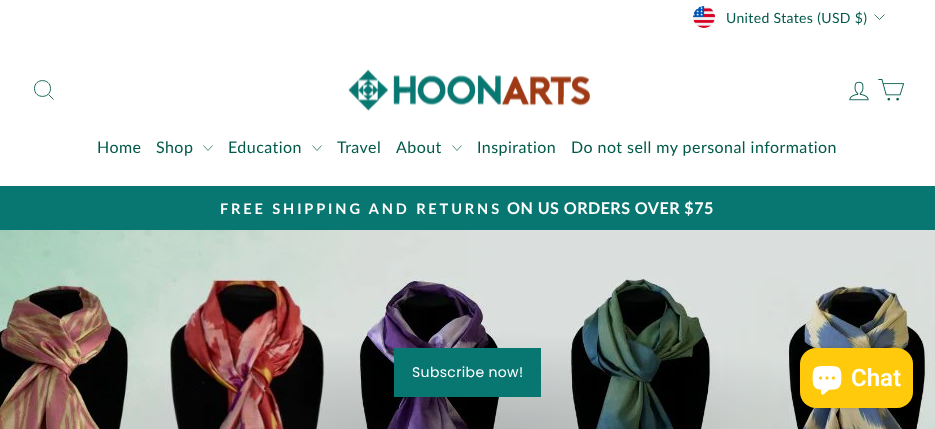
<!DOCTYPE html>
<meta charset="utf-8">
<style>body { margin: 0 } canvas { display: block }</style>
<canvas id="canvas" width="935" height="429"></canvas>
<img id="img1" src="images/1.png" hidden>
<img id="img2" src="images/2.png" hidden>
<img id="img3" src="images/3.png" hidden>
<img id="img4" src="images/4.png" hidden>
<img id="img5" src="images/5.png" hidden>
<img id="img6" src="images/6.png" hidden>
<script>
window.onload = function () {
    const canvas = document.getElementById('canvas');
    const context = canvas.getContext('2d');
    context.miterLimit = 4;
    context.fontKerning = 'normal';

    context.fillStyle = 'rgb(255, 255, 255)';
    context.fillRect(0, 0, 935, 429);
    context.drawImage(document.getElementById('img1'), 693, 6, 22, 22);
    context.beginPath();
    context.moveTo(874.5, 14.5);
    context.lineTo(879.5, 19.5);
    context.lineTo(884.5, 14.5);
    context.strokeStyle = 'rgb(0, 89, 73)';
    context.lineWidth = 0.8;
    context.stroke();
    context.beginPath();
    context.moveTo(50.5, 88.5);
    context.bezierCurveTo(50.5, 99, 34.5, 99, 34.5, 88.5);
    context.bezierCurveTo(34.5, 78, 50.5, 78, 50.5, 88.5);
    context.closePath();
    context.moveTo(53.5, 99.5);
    context.lineTo(48.5, 94.5);
    context.lineWidth = 0.9;
    context.stroke();
    context.drawImage(document.getElementById('img2'), 348, 69, 242, 42);
    context.drawImage(document.getElementById('img3'), 849, 81, 20, 20);
    context.drawImage(document.getElementById('img4'), 878, 79, 27, 22);
    context.beginPath();
    context.moveTo(203.5, 145.5);
    context.lineTo(208, 150.5);
    context.lineTo(212.5, 145.5);
    context.lineWidth = 0.7;
    context.stroke();
    context.beginPath();
    context.moveTo(312.5, 145.5);
    context.lineTo(317, 150.5);
    context.lineTo(321.5, 145.5);
    context.stroke();
    context.beginPath();
    context.moveTo(452.5, 145.5);
    context.lineTo(457, 150.5);
    context.lineTo(461.5, 145.5);
    context.stroke();
    context.fillStyle = 'rgb(8, 119, 114)';
    context.fillRect(0, 186, 935, 44);
    context.drawImage(document.getElementById('img5'), 0, 230, 935, 199);
    context.fillRect(394, 348, 147, 49);
    context.fillStyle = 'rgba(0, 0, 0, 0.15)';
    context.filter = 'blur(2.5px)';
    context.beginPath();
    context.roundRect(800, 348, 113, 60, 16);
    context.fill();
    context.filter = 'none';
    context.fillStyle = 'rgb(255, 201, 12)';
    context.beginPath();
    context.roundRect(800, 348, 113, 60, 16);
    context.fill();
    context.drawImage(document.getElementById('img6'), 812, 366, 30, 29);
    context.letterSpacing = '0.35px';
    context.font = '14px Lato';
    context.fillStyle = 'rgb(0, 89, 73)';
    context.fillText('United States (USD $)', 726, 23);
    context.letterSpacing = '0.45px';
    context.font = '16px Lato';
    context.fillText('Home', 97, 153);
    context.fillText('Shop', 156, 153);
    context.fillText('Education', 228, 153);
    context.fillText('Travel', 337, 153);
    context.fillText('About', 396, 153);
    context.fillText('Inspiration', 477, 153);
    context.fillText('Do not sell my personal information', 571, 153);
    context.letterSpacing = '2.9px';
    context.font = 'bold 14.5px Lato';
    context.fillStyle = 'rgb(255, 255, 255)';
    context.fillText('FREE SHIPPING AND RETURNS', 220, 214);
    context.letterSpacing = '0.45px';
    context.font = 'bold 16.1px Lato';
    context.fillText('ON US ORDERS OVER $75', 507, 214);
    context.letterSpacing = '0.35px';
    context.font = '14px Poppins';
    context.fillText('Subscribe now!', 412, 377);
    context.letterSpacing = '0px';
    context.font = '600 24px Roboto';
    context.fillText('Chat', 851, 386);
};
</script>
